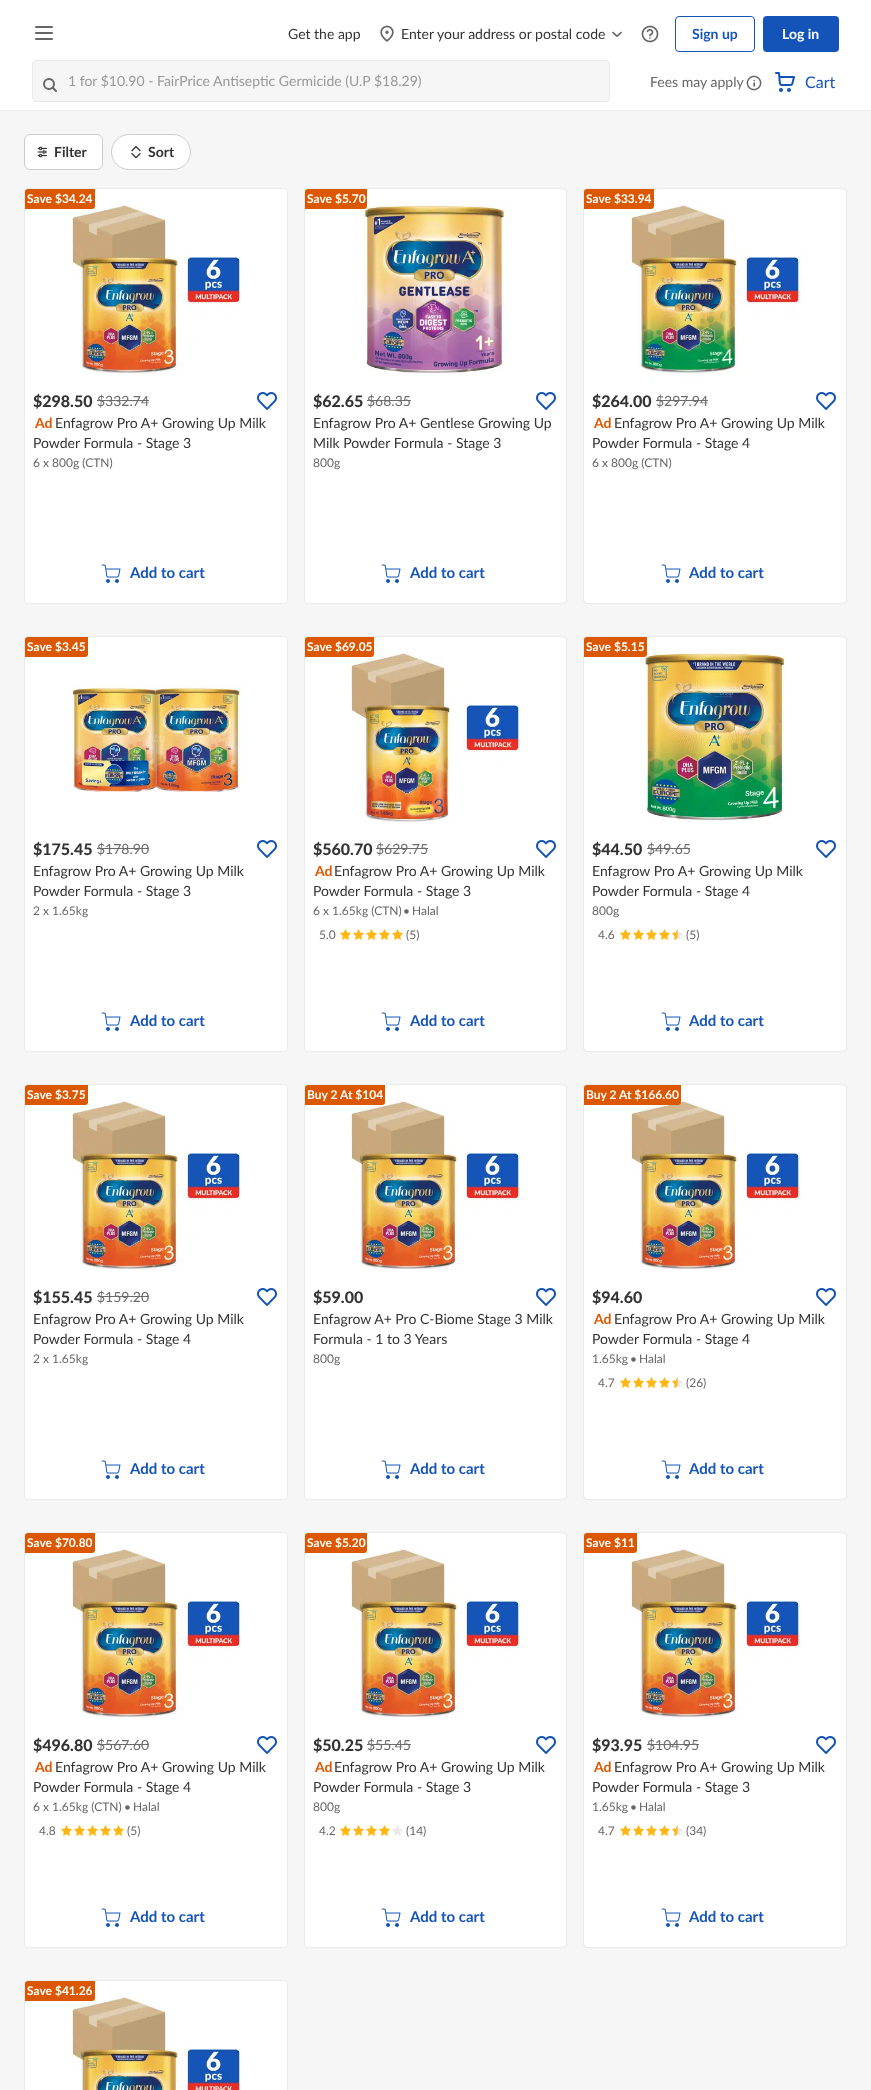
<!DOCTYPE html>
<meta charset="utf-8">
<style>body { margin: 0 } canvas { display: block }</style>
<canvas id="canvas" width="871" height="2090"></canvas>
<img id="img1" src="images/1.png" hidden>
<img id="img2" src="images/2.png" hidden>
<img id="img3" src="images/3.png" hidden>
<img id="img4" src="images/4.png" hidden>
<img id="img5" src="images/5.png" hidden>
<img id="img6" src="images/6.png" hidden>
<img id="img7" src="images/7.png" hidden>
<img id="img8" src="images/8.png" hidden>
<img id="img9" src="images/9.png" hidden>
<img id="img10" src="images/10.png" hidden>
<img id="img11" src="images/11.png" hidden>
<img id="img12" src="images/12.png" hidden>
<img id="img13" src="images/13.png" hidden>
<img id="img14" src="images/14.png" hidden>
<img id="img15" src="images/15.png" hidden>
<img id="img16" src="images/16.png" hidden>
<img id="img17" src="images/17.png" hidden>
<img id="img18" src="images/18.png" hidden>
<img id="img19" src="images/19.png" hidden>
<script>
window.onload = function () {
    const canvas = document.getElementById('canvas');
    const context = canvas.getContext('2d');
    context.miterLimit = 4;
    context.fontKerning = 'normal';

    context.fillStyle = 'rgb(246, 246, 246)';
    context.fillRect(0, 0, 871, 2090);
    context.fillStyle = 'rgb(255, 255, 255)';
    context.fillRect(0, 0, 871, 110);
    context.fillStyle = 'rgb(234, 234, 234)';
    context.fillRect(0, 110, 871, 1);
    context.fillStyle = 'rgb(102, 102, 102)';
    context.beginPath();
    context.roundRect(35, 26, 18, 2, 1);
    context.fill();
    context.beginPath();
    context.roundRect(35, 32, 18, 2, 1);
    context.fill();
    context.beginPath();
    context.roundRect(35, 38, 18, 2, 1);
    context.fill();
    context.drawImage(document.getElementById('img1'), 380, 25, 14, 17);
    context.drawImage(document.getElementById('img2'), 612, 31, 10, 6);
    context.drawImage(document.getElementById('img3'), 641, 25, 18, 18);
    context.beginPath();
    context.roundRect(675.5, 16.5, 79, 35, 3.5);
    context.strokeStyle = 'rgb(20, 84, 184)';
    context.stroke();
    context.fillStyle = 'rgb(20, 84, 184)';
    context.beginPath();
    context.roundRect(763, 16, 76, 36, 4);
    context.fill();
    context.fillStyle = 'rgb(246, 246, 246)';
    context.beginPath();
    context.roundRect(32.5, 60.5, 577, 41, 3.5);
    context.fill();
    context.strokeStyle = 'rgb(234, 234, 234)';
    context.stroke();
    context.beginPath();
    context.arc(49, 84, 5, 0, 2 * Math.PI);
    context.strokeStyle = 'rgb(102, 102, 102)';
    context.lineWidth = 2;
    context.stroke();
    context.beginPath();
    context.moveTo(56, 91);
    context.lineTo(53, 88);
    context.lineCap = 'round';
    context.lineJoin = 'round';
    context.stroke();
    context.drawImage(document.getElementById('img4'), 746, 75, 16, 16);
    context.drawImage(document.getElementById('img5'), 775, 72, 20, 20);
    context.fillStyle = 'rgb(255, 255, 255)';
    context.beginPath();
    context.roundRect(24.5, 134.5, 78, 35, 5.5);
    context.fill();
    context.strokeStyle = 'rgb(204, 204, 204)';
    context.lineWidth = 1;
    context.lineJoin = 'miter';
    context.stroke();
    context.drawImage(document.getElementById('img6'), 37, 146, 10, 12);
    context.beginPath();
    context.roundRect(111.5, 134.5, 79, 35, 17.5);
    context.fill();
    context.stroke();
    context.drawImage(document.getElementById('img7'), 131, 146, 10, 13);
    context.beginPath();
    context.roundRect(24.5, 188.5, 263, 415, 3.5);
    context.fill();
    context.strokeStyle = 'rgb(234, 234, 234)';
    context.stroke();
    context.drawImage(document.getElementById('img8'), 71, 204, 171, 170);
    context.fillStyle = 'rgb(219, 88, 0)';
    context.beginPath();
    context.roundRect(25, 189, 70, 20, [3, 0, 3, 0]);
    context.fill();
    context.fillStyle = 'rgb(108, 108, 108)';
    context.fillRect(97, 400, 52, 1);
    context.drawImage(document.getElementById('img9'), 257, 392, 20, 18);
    context.drawImage(document.getElementById('img10'), 101, 564, 20, 19);
    context.fillStyle = 'rgb(255, 255, 255)';
    context.beginPath();
    context.roundRect(304.5, 188.5, 262, 415, 3.5);
    context.fill();
    context.stroke();
    context.drawImage(document.getElementById('img11'), 363, 205, 146, 169);
    context.fillStyle = 'rgb(219, 88, 0)';
    context.beginPath();
    context.roundRect(305, 189, 62, 20, [3, 0, 3, 0]);
    context.fill();
    context.fillStyle = 'rgb(108, 108, 108)';
    context.fillRect(367, 400, 44, 1);
    context.drawImage(document.getElementById('img9'), 536, 392, 20, 18);
    context.drawImage(document.getElementById('img10'), 381, 564, 20, 19);
    context.fillStyle = 'rgb(255, 255, 255)';
    context.beginPath();
    context.roundRect(583.5, 188.5, 263, 415, 3.5);
    context.fill();
    context.stroke();
    context.drawImage(document.getElementById('img12'), 630, 204, 177, 177);
    context.fillStyle = 'rgb(219, 88, 0)';
    context.beginPath();
    context.roundRect(584, 189, 70, 20, [3, 0, 3, 0]);
    context.fill();
    context.fillStyle = 'rgb(108, 108, 108)';
    context.fillRect(656, 400, 52, 1);
    context.drawImage(document.getElementById('img9'), 816, 392, 20, 18);
    context.drawImage(document.getElementById('img10'), 661, 564, 20, 19);
    context.fillStyle = 'rgb(255, 255, 255)';
    context.beginPath();
    context.roundRect(24.5, 636.5, 263, 415, 3.5);
    context.fill();
    context.stroke();
    context.fillStyle = 'rgb(219, 88, 0)';
    context.beginPath();
    context.roundRect(25, 637, 63, 20, [3, 0, 3, 0]);
    context.fill();
    context.drawImage(document.getElementById('img13'), 71, 686, 177, 107);
    context.fillStyle = 'rgb(108, 108, 108)';
    context.fillRect(97, 848, 52, 1);
    context.drawImage(document.getElementById('img9'), 257, 840, 20, 18);
    context.drawImage(document.getElementById('img10'), 101, 1012, 20, 19);
    context.fillStyle = 'rgb(255, 255, 255)';
    context.beginPath();
    context.roundRect(304.5, 636.5, 262, 415, 3.5);
    context.fill();
    context.stroke();
    context.drawImage(document.getElementById('img14'), 348, 652, 173, 170);
    context.fillStyle = 'rgb(219, 88, 0)';
    context.beginPath();
    context.roundRect(305, 637, 69, 20, [3, 0, 3, 0]);
    context.fill();
    context.fillStyle = 'rgb(108, 108, 108)';
    context.fillRect(376, 848, 52, 1);
    context.drawImage(document.getElementById('img9'), 536, 840, 20, 18);
    context.drawImage(document.getElementById('img15'), 340, 929, 11, 11);
    context.drawImage(document.getElementById('img15'), 353, 929, 11, 11);
    context.drawImage(document.getElementById('img15'), 366, 929, 11, 11);
    context.drawImage(document.getElementById('img15'), 379, 929, 11, 11);
    context.drawImage(document.getElementById('img15'), 392, 929, 11, 11);
    context.drawImage(document.getElementById('img10'), 381, 1012, 20, 19);
    context.fillStyle = 'rgb(255, 255, 255)';
    context.beginPath();
    context.roundRect(583.5, 636.5, 263, 415, 3.5);
    context.fill();
    context.stroke();
    context.drawImage(document.getElementById('img16'), 645, 651, 141, 171);
    context.fillStyle = 'rgb(219, 88, 0)';
    context.beginPath();
    context.roundRect(584, 637, 63, 20, [3, 0, 3, 0]);
    context.fill();
    context.fillStyle = 'rgb(108, 108, 108)';
    context.fillRect(647, 848, 43, 1);
    context.drawImage(document.getElementById('img9'), 816, 840, 20, 18);
    context.drawImage(document.getElementById('img15'), 620, 929, 11, 11);
    context.drawImage(document.getElementById('img15'), 633, 929, 11, 11);
    context.drawImage(document.getElementById('img15'), 646, 929, 11, 11);
    context.drawImage(document.getElementById('img15'), 659, 929, 11, 11);
    context.drawImage(document.getElementById('img17'), 672, 929, 11, 11);
    context.drawImage(document.getElementById('img10'), 661, 1012, 20, 19);
    context.fillStyle = 'rgb(255, 255, 255)';
    context.beginPath();
    context.roundRect(24.5, 1084.5, 263, 415, 3.5);
    context.fill();
    context.stroke();
    context.drawImage(document.getElementById('img8'), 71, 1100, 171, 170);
    context.fillStyle = 'rgb(219, 88, 0)';
    context.beginPath();
    context.roundRect(25, 1085, 63, 20, [3, 0, 3, 0]);
    context.fill();
    context.fillStyle = 'rgb(108, 108, 108)';
    context.fillRect(97, 1296, 52, 1);
    context.drawImage(document.getElementById('img9'), 257, 1288, 20, 18);
    context.drawImage(document.getElementById('img10'), 101, 1460, 20, 19);
    context.fillStyle = 'rgb(255, 255, 255)';
    context.beginPath();
    context.roundRect(304.5, 1084.5, 262, 415, 3.5);
    context.fill();
    context.stroke();
    context.drawImage(document.getElementById('img8'), 350, 1100, 171, 170);
    context.fillStyle = 'rgb(219, 88, 0)';
    context.beginPath();
    context.roundRect(305, 1085, 80, 20, [3, 0, 3, 0]);
    context.fill();
    context.drawImage(document.getElementById('img9'), 536, 1288, 20, 18);
    context.drawImage(document.getElementById('img10'), 381, 1460, 20, 19);
    context.fillStyle = 'rgb(255, 255, 255)';
    context.beginPath();
    context.roundRect(583.5, 1084.5, 263, 415, 3.5);
    context.fill();
    context.stroke();
    context.drawImage(document.getElementById('img8'), 630, 1100, 171, 170);
    context.fillStyle = 'rgb(219, 88, 0)';
    context.beginPath();
    context.roundRect(584, 1085, 97, 20, [3, 0, 3, 0]);
    context.fill();
    context.drawImage(document.getElementById('img9'), 816, 1288, 20, 18);
    context.drawImage(document.getElementById('img15'), 620, 1377, 11, 11);
    context.drawImage(document.getElementById('img15'), 633, 1377, 11, 11);
    context.drawImage(document.getElementById('img15'), 646, 1377, 11, 11);
    context.drawImage(document.getElementById('img15'), 659, 1377, 11, 11);
    context.drawImage(document.getElementById('img17'), 672, 1377, 11, 11);
    context.drawImage(document.getElementById('img10'), 661, 1460, 20, 19);
    context.fillStyle = 'rgb(255, 255, 255)';
    context.beginPath();
    context.roundRect(24.5, 1532.5, 263, 415, 3.5);
    context.fill();
    context.stroke();
    context.drawImage(document.getElementById('img8'), 71, 1548, 171, 170);
    context.fillStyle = 'rgb(219, 88, 0)';
    context.beginPath();
    context.roundRect(25, 1533, 70, 20, [3, 0, 3, 0]);
    context.fill();
    context.fillStyle = 'rgb(108, 108, 108)';
    context.fillRect(97, 1744, 52, 1);
    context.drawImage(document.getElementById('img9'), 257, 1736, 20, 18);
    context.drawImage(document.getElementById('img15'), 61, 1825, 11, 11);
    context.drawImage(document.getElementById('img15'), 74, 1825, 11, 11);
    context.drawImage(document.getElementById('img15'), 87, 1825, 11, 11);
    context.drawImage(document.getElementById('img15'), 100, 1825, 11, 11);
    context.drawImage(document.getElementById('img15'), 113, 1825, 11, 11);
    context.drawImage(document.getElementById('img10'), 101, 1908, 20, 19);
    context.fillStyle = 'rgb(255, 255, 255)';
    context.beginPath();
    context.roundRect(304.5, 1532.5, 262, 415, 3.5);
    context.fill();
    context.stroke();
    context.drawImage(document.getElementById('img8'), 350, 1548, 171, 170);
    context.fillStyle = 'rgb(219, 88, 0)';
    context.beginPath();
    context.roundRect(305, 1533, 62, 20, [3, 0, 3, 0]);
    context.fill();
    context.fillStyle = 'rgb(108, 108, 108)';
    context.fillRect(367, 1744, 44, 1);
    context.drawImage(document.getElementById('img9'), 536, 1736, 20, 18);
    context.drawImage(document.getElementById('img15'), 340, 1825, 11, 11);
    context.drawImage(document.getElementById('img15'), 353, 1825, 11, 11);
    context.drawImage(document.getElementById('img15'), 366, 1825, 11, 11);
    context.drawImage(document.getElementById('img15'), 379, 1825, 11, 11);
    context.drawImage(document.getElementById('img18'), 392, 1825, 11, 11);
    context.drawImage(document.getElementById('img10'), 381, 1908, 20, 19);
    context.fillStyle = 'rgb(255, 255, 255)';
    context.beginPath();
    context.roundRect(583.5, 1532.5, 263, 415, 3.5);
    context.fill();
    context.stroke();
    context.drawImage(document.getElementById('img8'), 630, 1548, 171, 170);
    context.fillStyle = 'rgb(219, 88, 0)';
    context.beginPath();
    context.roundRect(584, 1533, 53, 20, [3, 0, 3, 0]);
    context.fill();
    context.fillStyle = 'rgb(108, 108, 108)';
    context.fillRect(647, 1744, 52, 1);
    context.drawImage(document.getElementById('img9'), 816, 1736, 20, 18);
    context.drawImage(document.getElementById('img15'), 620, 1825, 11, 11);
    context.drawImage(document.getElementById('img15'), 633, 1825, 11, 11);
    context.drawImage(document.getElementById('img15'), 646, 1825, 11, 11);
    context.drawImage(document.getElementById('img15'), 659, 1825, 11, 11);
    context.drawImage(document.getElementById('img17'), 672, 1825, 11, 11);
    context.drawImage(document.getElementById('img10'), 661, 1908, 20, 19);
    context.fillStyle = 'rgb(255, 255, 255)';
    context.beginPath();
    context.roundRect(24.5, 1980.5, 263, 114, 3.5);
    context.fill();
    context.stroke();
    context.drawImage(document.getElementById('img19'), 71, 1996, 171, 94);
    context.fillStyle = 'rgb(219, 88, 0)';
    context.beginPath();
    context.roundRect(25, 1981, 70, 20, [3, 0, 3, 0]);
    context.fill();
    context.font = '14px Lato';
    context.fillStyle = 'rgb(51, 51, 51)';
    context.fillText('Get the app', 288, 39);
    context.fillText('Enter your address or postal code', 401, 39);
    context.font = 'bold 14px Lato';
    context.fillStyle = 'rgb(20, 84, 184)';
    context.fillText('Sign up', 692, 39);
    context.fillStyle = 'rgb(255, 255, 255)';
    context.fillText('Log in', 782, 39);
    context.font = '14px Lato';
    context.fillStyle = 'rgb(153, 153, 153)';
    context.fillText('1 for $10.90 - FairPrice Antiseptic Germicide (U.P $18.29)', 68, 86);
    context.fillStyle = 'rgb(102, 102, 102)';
    context.fillText('Fees may apply', 650, 87);
    context.font = '16px Lato';
    context.fillStyle = 'rgb(20, 84, 184)';
    context.fillText('Cart', 805, 88);
    context.font = 'bold 14px Lato';
    context.fillStyle = 'rgb(51, 51, 51)';
    context.fillText('Filter', 54, 157);
    context.fillText('Sort', 148, 157);
    context.font = 'bold 12px Lato';
    context.fillStyle = 'rgb(255, 255, 255)';
    context.fillText('Save $34.24', 27, 203);
    context.font = '900 16px Lato';
    context.fillStyle = 'rgb(51, 51, 51)';
    context.fillText('$298.50', 33, 407);
    context.font = '14px Lato';
    context.fillStyle = 'rgb(108, 108, 108)';
    context.fillText('$332.74', 97, 406);
    context.font = 'bold 14px Lato';
    context.fillStyle = 'rgb(219, 88, 0)';
    context.fillText('Ad', 35, 428);
    context.font = '14px Lato';
    context.fillStyle = 'rgb(51, 51, 51)';
    context.fillText('Enfagrow Pro A+ Growing Up Milk', 55, 428);
    context.fillText('Powder Formula - Stage 3', 33, 448);
    context.font = '12px Lato';
    context.fillStyle = 'rgb(102, 102, 102)';
    context.fillText('6 x 800g (CTN)', 33, 467);
    context.font = 'bold 15px Lato';
    context.fillStyle = 'rgb(20, 84, 184)';
    context.fillText('Add to cart', 130, 578);
    context.font = 'bold 12px Lato';
    context.fillStyle = 'rgb(255, 255, 255)';
    context.fillText('Save $5.70', 307, 203);
    context.font = '900 16px Lato';
    context.fillStyle = 'rgb(51, 51, 51)';
    context.fillText('$62.65', 313, 407);
    context.font = '14px Lato';
    context.fillStyle = 'rgb(108, 108, 108)';
    context.fillText('$68.35', 367, 406);
    context.fillStyle = 'rgb(51, 51, 51)';
    context.fillText('Enfagrow Pro A+ Gentlese Growing Up', 313, 428);
    context.fillText('Milk Powder Formula - Stage 3', 313, 448);
    context.font = '12px Lato';
    context.fillStyle = 'rgb(102, 102, 102)';
    context.fillText('800g', 313, 467);
    context.font = 'bold 15px Lato';
    context.fillStyle = 'rgb(20, 84, 184)';
    context.fillText('Add to cart', 410, 578);
    context.font = 'bold 12px Lato';
    context.fillStyle = 'rgb(255, 255, 255)';
    context.fillText('Save $33.94', 586, 203);
    context.font = '900 16px Lato';
    context.fillStyle = 'rgb(51, 51, 51)';
    context.fillText('$264.00', 592, 407);
    context.font = '14px Lato';
    context.fillStyle = 'rgb(108, 108, 108)';
    context.fillText('$297.94', 656, 406);
    context.font = 'bold 14px Lato';
    context.fillStyle = 'rgb(219, 88, 0)';
    context.fillText('Ad', 594, 428);
    context.font = '14px Lato';
    context.fillStyle = 'rgb(51, 51, 51)';
    context.fillText('Enfagrow Pro A+ Growing Up Milk', 614, 428);
    context.fillText('Powder Formula - Stage 4', 592, 448);
    context.font = '12px Lato';
    context.fillStyle = 'rgb(102, 102, 102)';
    context.fillText('6 x 800g (CTN)', 592, 467);
    context.font = 'bold 15px Lato';
    context.fillStyle = 'rgb(20, 84, 184)';
    context.fillText('Add to cart', 689, 578);
    context.font = 'bold 12px Lato';
    context.fillStyle = 'rgb(255, 255, 255)';
    context.fillText('Save $3.45', 27, 651);
    context.font = '900 16px Lato';
    context.fillStyle = 'rgb(51, 51, 51)';
    context.fillText('$175.45', 33, 855);
    context.font = '14px Lato';
    context.fillStyle = 'rgb(108, 108, 108)';
    context.fillText('$178.90', 97, 854);
    context.fillStyle = 'rgb(51, 51, 51)';
    context.fillText('Enfagrow Pro A+ Growing Up Milk', 33, 876);
    context.fillText('Powder Formula - Stage 3', 33, 896);
    context.font = '12px Lato';
    context.fillStyle = 'rgb(102, 102, 102)';
    context.fillText('2 x 1.65kg', 33, 915);
    context.font = 'bold 15px Lato';
    context.fillStyle = 'rgb(20, 84, 184)';
    context.fillText('Add to cart', 130, 1026);
    context.font = 'bold 12px Lato';
    context.fillStyle = 'rgb(255, 255, 255)';
    context.fillText('Save $69.05', 307, 651);
    context.font = '900 16px Lato';
    context.fillStyle = 'rgb(51, 51, 51)';
    context.fillText('$560.70', 313, 855);
    context.font = '14px Lato';
    context.fillStyle = 'rgb(108, 108, 108)';
    context.fillText('$629.75', 376, 854);
    context.font = 'bold 14px Lato';
    context.fillStyle = 'rgb(219, 88, 0)';
    context.fillText('Ad', 315, 876);
    context.font = '14px Lato';
    context.fillStyle = 'rgb(51, 51, 51)';
    context.fillText('Enfagrow Pro A+ Growing Up Milk', 334, 876);
    context.fillText('Powder Formula - Stage 3', 313, 896);
    context.font = '12px Lato';
    context.fillStyle = 'rgb(102, 102, 102)';
    context.fillText('6 x 1.65kg (CTN)', 313, 915);
    context.fillText('•', 403, 915);
    context.fillText('Halal', 412, 915);
    context.fillText('5.0', 319, 939);
    context.fillText('(5)', 406, 939);
    context.font = 'bold 15px Lato';
    context.fillStyle = 'rgb(20, 84, 184)';
    context.fillText('Add to cart', 410, 1026);
    context.font = 'bold 12px Lato';
    context.fillStyle = 'rgb(255, 255, 255)';
    context.fillText('Save $5.15', 586, 651);
    context.font = '900 16px Lato';
    context.fillStyle = 'rgb(51, 51, 51)';
    context.fillText('$44.50', 592, 855);
    context.font = '14px Lato';
    context.fillStyle = 'rgb(108, 108, 108)';
    context.fillText('$49.65', 647, 854);
    context.fillStyle = 'rgb(51, 51, 51)';
    context.fillText('Enfagrow Pro A+ Growing Up Milk', 592, 876);
    context.fillText('Powder Formula - Stage 4', 592, 896);
    context.font = '12px Lato';
    context.fillStyle = 'rgb(102, 102, 102)';
    context.fillText('800g', 592, 915);
    context.fillText('4.6', 598, 939);
    context.fillText('(5)', 686, 939);
    context.font = 'bold 15px Lato';
    context.fillStyle = 'rgb(20, 84, 184)';
    context.fillText('Add to cart', 689, 1026);
    context.font = 'bold 12px Lato';
    context.fillStyle = 'rgb(255, 255, 255)';
    context.fillText('Save $3.75', 27, 1099);
    context.font = '900 16px Lato';
    context.fillStyle = 'rgb(51, 51, 51)';
    context.fillText('$155.45', 33, 1303);
    context.font = '14px Lato';
    context.fillStyle = 'rgb(108, 108, 108)';
    context.fillText('$159.20', 97, 1302);
    context.fillStyle = 'rgb(51, 51, 51)';
    context.fillText('Enfagrow Pro A+ Growing Up Milk', 33, 1324);
    context.fillText('Powder Formula - Stage 4', 33, 1344);
    context.font = '12px Lato';
    context.fillStyle = 'rgb(102, 102, 102)';
    context.fillText('2 x 1.65kg', 33, 1363);
    context.font = 'bold 15px Lato';
    context.fillStyle = 'rgb(20, 84, 184)';
    context.fillText('Add to cart', 130, 1474);
    context.font = 'bold 12px Lato';
    context.fillStyle = 'rgb(255, 255, 255)';
    context.fillText('Buy 2', 307, 1099);
    context.fillText('At $104', 340, 1099);
    context.font = '900 16px Lato';
    context.fillStyle = 'rgb(51, 51, 51)';
    context.fillText('$59.00', 313, 1303);
    context.font = '14px Lato';
    context.fillText('Enfagrow A+ Pro C-Biome Stage 3 Milk', 313, 1324);
    context.fillText('Formula - 1 to 3 Years', 313, 1344);
    context.font = '12px Lato';
    context.fillStyle = 'rgb(102, 102, 102)';
    context.fillText('800g', 313, 1363);
    context.font = 'bold 15px Lato';
    context.fillStyle = 'rgb(20, 84, 184)';
    context.fillText('Add to cart', 410, 1474);
    context.font = 'bold 12px Lato';
    context.fillStyle = 'rgb(255, 255, 255)';
    context.fillText('Buy 2', 586, 1099);
    context.fillText('At $166.60', 619, 1099);
    context.font = '900 16px Lato';
    context.fillStyle = 'rgb(51, 51, 51)';
    context.fillText('$94.60', 592, 1303);
    context.font = 'bold 14px Lato';
    context.fillStyle = 'rgb(219, 88, 0)';
    context.fillText('Ad', 594, 1324);
    context.font = '14px Lato';
    context.fillStyle = 'rgb(51, 51, 51)';
    context.fillText('Enfagrow Pro A+ Growing Up Milk', 614, 1324);
    context.fillText('Powder Formula - Stage 4', 592, 1344);
    context.font = '12px Lato';
    context.fillStyle = 'rgb(102, 102, 102)';
    context.fillText('1.65kg', 592, 1363);
    context.fillText('•', 630, 1363);
    context.fillText('Halal', 639, 1363);
    context.fillText('4.7', 598, 1387);
    context.fillText('(26)', 686, 1387);
    context.font = 'bold 15px Lato';
    context.fillStyle = 'rgb(20, 84, 184)';
    context.fillText('Add to cart', 689, 1474);
    context.font = 'bold 12px Lato';
    context.fillStyle = 'rgb(255, 255, 255)';
    context.fillText('Save $70.80', 27, 1547);
    context.font = '900 16px Lato';
    context.fillStyle = 'rgb(51, 51, 51)';
    context.fillText('$496.80', 33, 1751);
    context.font = '14px Lato';
    context.fillStyle = 'rgb(108, 108, 108)';
    context.fillText('$567.60', 97, 1750);
    context.font = 'bold 14px Lato';
    context.fillStyle = 'rgb(219, 88, 0)';
    context.fillText('Ad', 35, 1772);
    context.font = '14px Lato';
    context.fillStyle = 'rgb(51, 51, 51)';
    context.fillText('Enfagrow Pro A+ Growing Up Milk', 55, 1772);
    context.fillText('Powder Formula - Stage 4', 33, 1792);
    context.font = '12px Lato';
    context.fillStyle = 'rgb(102, 102, 102)';
    context.fillText('6 x 1.65kg (CTN)', 33, 1811);
    context.fillText('•', 124, 1811);
    context.fillText('Halal', 133, 1811);
    context.fillText('4.8', 39, 1835);
    context.fillText('(5)', 127, 1835);
    context.font = 'bold 15px Lato';
    context.fillStyle = 'rgb(20, 84, 184)';
    context.fillText('Add to cart', 130, 1922);
    context.font = 'bold 12px Lato';
    context.fillStyle = 'rgb(255, 255, 255)';
    context.fillText('Save $5.20', 307, 1547);
    context.font = '900 16px Lato';
    context.fillStyle = 'rgb(51, 51, 51)';
    context.fillText('$50.25', 313, 1751);
    context.font = '14px Lato';
    context.fillStyle = 'rgb(108, 108, 108)';
    context.fillText('$55.45', 367, 1750);
    context.font = 'bold 14px Lato';
    context.fillStyle = 'rgb(219, 88, 0)';
    context.fillText('Ad', 315, 1772);
    context.font = '14px Lato';
    context.fillStyle = 'rgb(51, 51, 51)';
    context.fillText('Enfagrow Pro A+ Growing Up Milk', 334, 1772);
    context.fillText('Powder Formula - Stage 3', 313, 1792);
    context.font = '12px Lato';
    context.fillStyle = 'rgb(102, 102, 102)';
    context.fillText('800g', 313, 1811);
    context.fillText('4.2', 319, 1835);
    context.fillText('(14)', 406, 1835);
    context.font = 'bold 15px Lato';
    context.fillStyle = 'rgb(20, 84, 184)';
    context.fillText('Add to cart', 410, 1922);
    context.font = 'bold 12px Lato';
    context.fillStyle = 'rgb(255, 255, 255)';
    context.fillText('Save $11', 586, 1547);
    context.font = '900 16px Lato';
    context.fillStyle = 'rgb(51, 51, 51)';
    context.fillText('$93.95', 592, 1751);
    context.font = '14px Lato';
    context.fillStyle = 'rgb(108, 108, 108)';
    context.fillText('$104.95', 647, 1750);
    context.font = 'bold 14px Lato';
    context.fillStyle = 'rgb(219, 88, 0)';
    context.fillText('Ad', 594, 1772);
    context.font = '14px Lato';
    context.fillStyle = 'rgb(51, 51, 51)';
    context.fillText('Enfagrow Pro A+ Growing Up Milk', 614, 1772);
    context.fillText('Powder Formula - Stage 3', 592, 1792);
    context.font = '12px Lato';
    context.fillStyle = 'rgb(102, 102, 102)';
    context.fillText('1.65kg', 592, 1811);
    context.fillText('•', 630, 1811);
    context.fillText('Halal', 639, 1811);
    context.fillText('4.7', 598, 1835);
    context.fillText('(34)', 686, 1835);
    context.font = 'bold 15px Lato';
    context.fillStyle = 'rgb(20, 84, 184)';
    context.fillText('Add to cart', 689, 1922);
    context.font = 'bold 12px Lato';
    context.fillStyle = 'rgb(255, 255, 255)';
    context.fillText('Save $41.26', 27, 1995);
};
</script>
